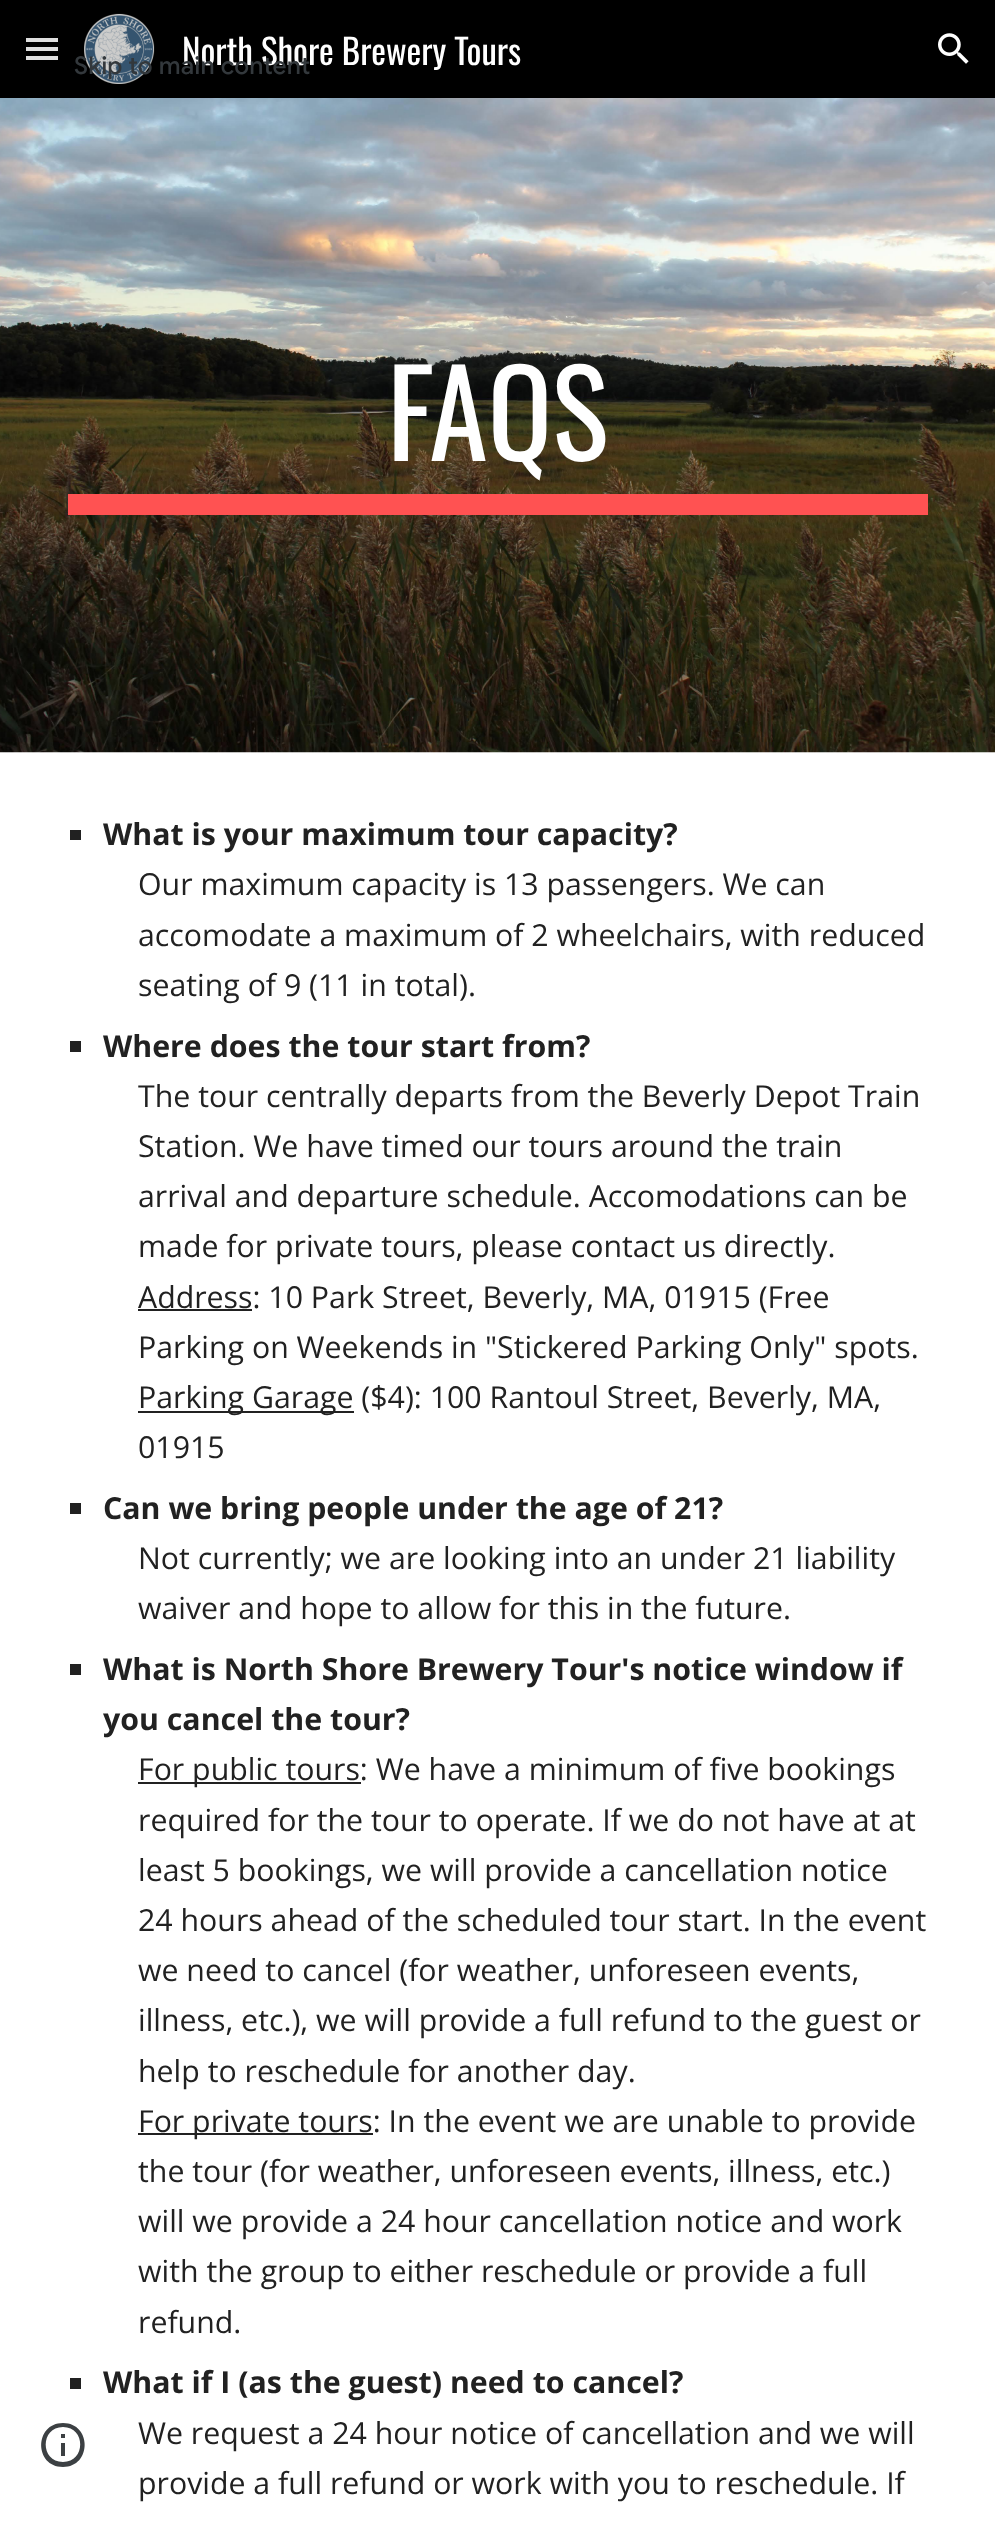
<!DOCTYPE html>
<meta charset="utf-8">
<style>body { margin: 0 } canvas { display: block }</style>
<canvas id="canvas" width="995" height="2526"></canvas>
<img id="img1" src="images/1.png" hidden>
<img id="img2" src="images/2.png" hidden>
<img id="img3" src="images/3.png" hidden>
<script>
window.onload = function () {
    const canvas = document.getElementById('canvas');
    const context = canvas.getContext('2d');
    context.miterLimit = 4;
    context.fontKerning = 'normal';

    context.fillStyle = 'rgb(255, 255, 255)';
    context.fillRect(0, 0, 995, 2526);
    context.fillStyle = 'rgb(0, 0, 0)';
    context.fillRect(0, 0, 995, 98);
    context.fillStyle = 'rgb(223, 223, 223)';
    context.fillRect(26, 38, 32, 4);
    context.fillRect(26, 47, 32, 4);
    context.fillRect(26, 56, 32, 4);
    context.drawImage(document.getElementById('img1'), 84, 13, 71, 71);
    context.drawImage(document.getElementById('img2'), 938, 33, 31, 31);
    context.fillStyle = 'rgb(60, 64, 67)';
    context.beginPath();
    context.moveTo(61, 2456);
    context.lineTo(65, 2456);
    context.lineTo(65, 2443);
    context.lineTo(61, 2443);
    context.closePath();
    context.moveTo(63, 2423);
    context.bezierCurveTo(34, 2423, 34, 2467, 63, 2467);
    context.bezierCurveTo(92, 2467, 92, 2423, 63, 2423);
    context.closePath();
    context.moveTo(63, 2462);
    context.bezierCurveTo(40, 2462, 40, 2427, 63, 2427);
    context.bezierCurveTo(86, 2427, 86, 2462, 63, 2462);
    context.closePath();
    context.moveTo(61, 2438);
    context.lineTo(65, 2438);
    context.lineTo(65, 2434);
    context.lineTo(61, 2434);
    context.closePath();
    context.fill();
    context.drawImage(document.getElementById('img3'), 0, 98, 995, 655);
    context.fillStyle = 'rgb(255, 82, 82)';
    context.fillRect(68, 494, 860, 21);
    context.fillStyle = 'rgb(33, 33, 33)';
    context.fillRect(70, 830, 11, 10);
    context.fillRect(70, 1041, 11, 11);
    context.fillRect(138, 1309, 114, 2);
    context.fillRect(138, 1411, 216, 2);
    context.fillRect(70, 1503, 11, 11);
    context.fillRect(70, 1664, 11, 11);
    context.fillRect(138, 1782, 223, 2);
    context.fillRect(138, 2133, 235, 2);
    context.fillRect(70, 2378, 11, 11);
    context.font = '35px Oswald';
    context.fillStyle = 'rgb(255, 255, 255)';
    context.fillText('North Shore Brewery Tours', 182, 65);
    context.font = '119px Oswald';
    context.fillText('FAQS', 387, 461);
    context.font = 'bold 30.3px Open Sans';
    context.fillStyle = 'rgb(33, 33, 33)';
    context.fillText('What is your maximum tour capacity?', 103, 845);
    context.font = '30.3px Open Sans';
    context.fillText('Our maximum capacity is 13 passengers. We can', 138, 895);
    context.fillText('accomodate a maximum of 2 wheelchairs, with reduced', 138, 946);
    context.fillText('seating of 9 (11 in total).', 138, 996);
    context.font = 'bold 30.3px Open Sans';
    context.fillText('Where does the tour start from?', 103, 1057);
    context.font = '30.3px Open Sans';
    context.fillText('The tour centrally departs from the Beverly Depot Train', 138, 1107);
    context.fillText('Station. We have timed our tours around the train', 138, 1157);
    context.fillText('arrival and departure schedule. Accomodations can be', 138, 1207);
    context.fillText('made for private tours, please contact us directly.', 138, 1257);
    context.fillText('Address: 10 Park Street, Beverly, MA, 01915 (Free', 138, 1308);
    context.fillText('Parking on Weekends in "Stickered Parking Only" spots.', 138, 1358);
    context.fillText('Parking Garage ($4): 100 Rantoul Street, Beverly, MA,', 138, 1408);
    context.fillText('01915', 138, 1458);
    context.font = 'bold 30.3px Open Sans';
    context.fillText('Can we bring people under the age of 21?', 103, 1519);
    context.font = '30.3px Open Sans';
    context.fillText('Not currently; we are looking into an under 21 liability', 138, 1569);
    context.fillText('waiver and hope to allow for this in the future.', 138, 1619);
    context.font = 'bold 30.3px Open Sans';
    context.fillText('What is North Shore Brewery Tour\'s notice window if', 103, 1680);
    context.fillText('you cancel the tour?', 103, 1730);
    context.font = '30.3px Open Sans';
    context.fillText('For public tours: We have a minimum of five bookings', 138, 1780);
    context.fillText('required for the tour to operate. If we do not have at at', 138, 1831);
    context.fillText('least 5 bookings, we will provide a cancellation notice', 138, 1881);
    context.fillText('24 hours ahead of the scheduled tour start. In the event', 138, 1931);
    context.fillText('we need to cancel (for weather, unforeseen events,', 138, 1981);
    context.fillText('illness, etc.), we will provide a full refund to the guest or', 138, 2031);
    context.fillText('help to reschedule for another day.', 138, 2082);
    context.fillText('For private tours: In the event we are unable to provide', 138, 2132);
    context.fillText('the tour (for weather, unforeseen events, illness, etc.)', 138, 2182);
    context.fillText('will we provide a 24 hour cancellation notice and work', 138, 2232);
    context.fillText('with the group to either reschedule or provide a full', 138, 2282);
    context.fillText('refund.', 138, 2333);
    context.font = 'bold 30.3px Open Sans';
    context.fillText('What if I (as the guest) need to cancel?', 103, 2393);
    context.font = '30.3px Open Sans';
    context.fillText('We request a 24 hour notice of cancellation and we will', 138, 2444);
    context.fillText('provide a full refund or work with you to reschedule. If', 138, 2494);
    context.letterSpacing = '0.25px';
    context.font = '500 24.5px Google Sans';
    context.fillStyle = 'rgb(51, 56, 60)';
    context.fillText('Skip to main content', 74, 74);
};
</script>
